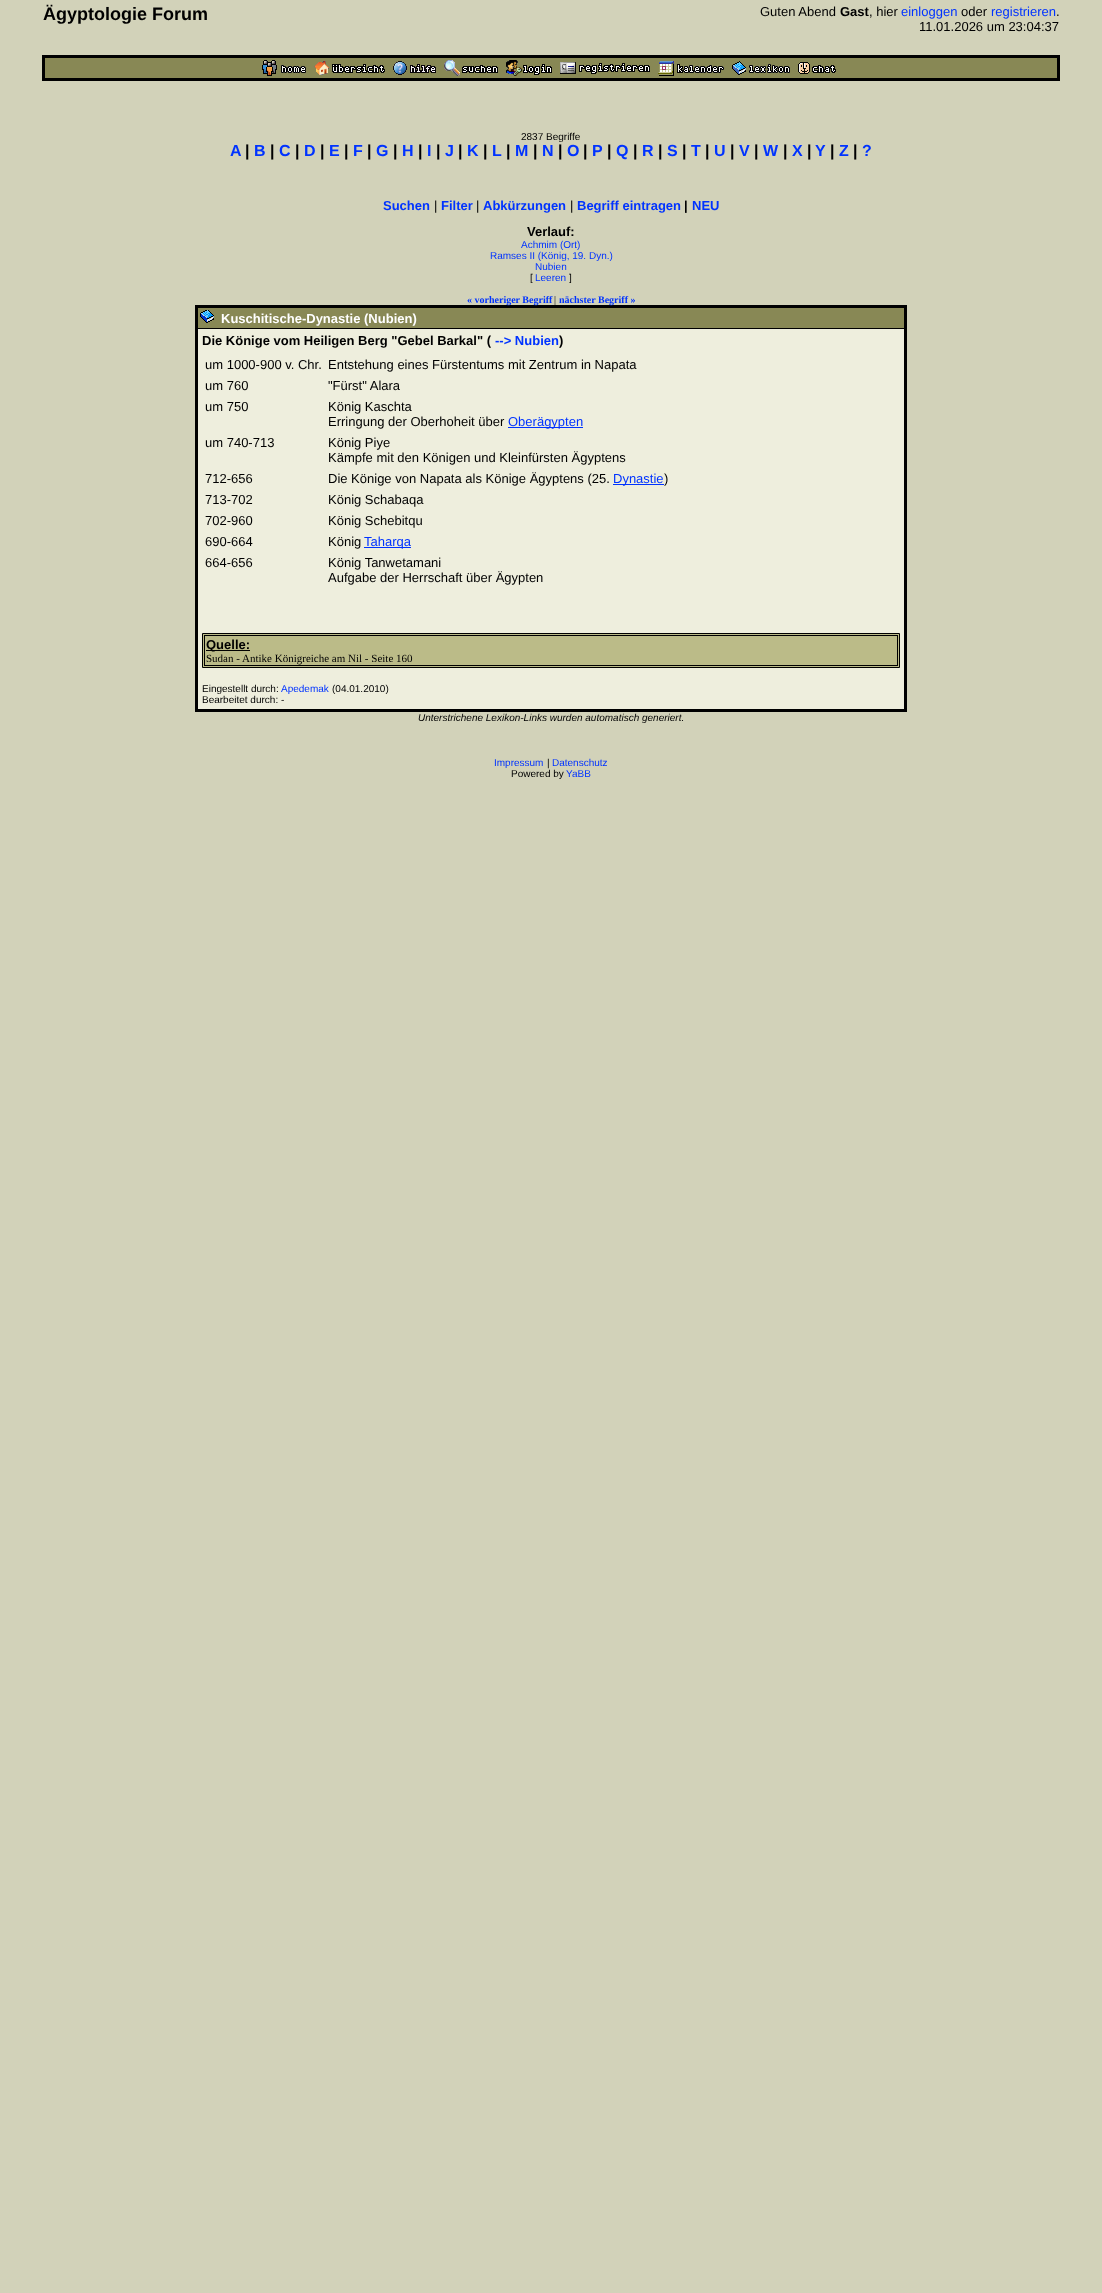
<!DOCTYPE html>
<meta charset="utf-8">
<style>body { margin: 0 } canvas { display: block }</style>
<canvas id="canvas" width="1102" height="2293"></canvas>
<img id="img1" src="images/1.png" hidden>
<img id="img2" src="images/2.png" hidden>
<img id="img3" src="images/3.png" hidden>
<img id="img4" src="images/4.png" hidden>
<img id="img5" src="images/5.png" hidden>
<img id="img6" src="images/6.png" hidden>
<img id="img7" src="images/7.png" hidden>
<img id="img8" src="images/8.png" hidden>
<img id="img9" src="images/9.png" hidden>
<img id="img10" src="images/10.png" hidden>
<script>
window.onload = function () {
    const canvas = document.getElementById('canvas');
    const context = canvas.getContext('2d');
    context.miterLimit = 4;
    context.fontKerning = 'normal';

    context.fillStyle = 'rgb(210, 210, 185)';
    context.fillRect(0, 0, 1102, 2293);
    context.fillStyle = 'rgb(0, 0, 0)';
    context.fillRect(42, 55, 1018, 26);
    context.fillStyle = 'rgb(136, 136, 85)';
    context.fillRect(45, 58, 1012, 20);
    context.drawImage(document.getElementById('img1'), 262, 60, 44, 16);
    context.drawImage(document.getElementById('img2'), 314, 61, 71, 14);
    context.drawImage(document.getElementById('img3'), 393, 61, 43, 14);
    context.drawImage(document.getElementById('img4'), 444, 60, 54, 16);
    context.drawImage(document.getElementById('img5'), 506, 60, 46, 16);
    context.drawImage(document.getElementById('img6'), 560, 62, 90, 12);
    context.drawImage(document.getElementById('img7'), 658, 61, 66, 15);
    context.drawImage(document.getElementById('img8'), 732, 61, 58, 14);
    context.drawImage(document.getElementById('img9'), 798, 62, 38, 12);
    context.fillStyle = 'rgb(0, 0, 0)';
    context.fillRect(195, 305, 712, 407);
    context.fillStyle = 'rgb(136, 136, 85)';
    context.fillRect(198, 308, 706, 20);
    context.drawImage(document.getElementById('img10'), 200, 310, 14, 13);
    context.fillStyle = 'rgb(238, 238, 221)';
    context.fillRect(198, 329, 706, 380);
    context.fillStyle = 'rgb(0, 51, 255)';
    context.fillRect(508, 427, 75, 1);
    context.fillRect(613, 484, 51, 1);
    context.fillRect(364, 547, 47, 1);
    context.fillStyle = 'rgb(187, 187, 136)';
    context.beginPath();
    context.rect(202.5, 633.5, 697, 34);
    context.fill();
    context.strokeStyle = 'rgb(0, 0, 0)';
    context.stroke();
    context.strokeRect(204.5, 635.5, 693, 30);
    context.fillStyle = 'rgb(0, 0, 0)';
    context.fillRect(206, 650, 44, 1);
    context.font = 'bold 18px Liberation Sans';
    context.fillText('Ägyptologie Forum', 43, 20);
    context.font = '13px Liberation Sans';
    context.fillText('Guten Abend', 760, 16);
    context.font = 'bold 13px Liberation Sans';
    context.fillText('Gast', 840, 16);
    context.font = '13px Liberation Sans';
    context.fillText(', hier', 869, 16);
    context.fillStyle = 'rgb(0, 51, 255)';
    context.fillText('einloggen', 901, 16);
    context.fillStyle = 'rgb(0, 0, 0)';
    context.fillText('oder', 961, 16);
    context.fillStyle = 'rgb(0, 51, 255)';
    context.fillText('registrieren', 991, 16);
    context.fillStyle = 'rgb(0, 0, 0)';
    context.fillText('.', 1056, 16);
    context.fillText('11.01.2026 um 23:04:37', 919, 31);
    context.font = '10px Liberation Sans';
    context.fillText('2837 Begriffe', 521, 140);
    context.font = 'bold 16px Liberation Sans';
    context.fillStyle = 'rgb(0, 51, 255)';
    context.fillText('A', 230, 156);
    context.fillStyle = 'rgb(0, 0, 0)';
    context.fillText('|', 245, 156);
    context.fillStyle = 'rgb(0, 51, 255)';
    context.fillText('B', 254, 156);
    context.fillStyle = 'rgb(0, 0, 0)';
    context.fillText('|', 270, 156);
    context.fillStyle = 'rgb(0, 51, 255)';
    context.fillText('C', 279, 156);
    context.fillStyle = 'rgb(0, 0, 0)';
    context.fillText('|', 295, 156);
    context.fillStyle = 'rgb(0, 51, 255)';
    context.fillText('D', 304, 156);
    context.fillStyle = 'rgb(0, 0, 0)';
    context.fillText('|', 320, 156);
    context.fillStyle = 'rgb(0, 51, 255)';
    context.fillText('E', 329, 156);
    context.fillStyle = 'rgb(0, 0, 0)';
    context.fillText('|', 344, 156);
    context.fillStyle = 'rgb(0, 51, 255)';
    context.fillText('F', 353, 156);
    context.fillStyle = 'rgb(0, 0, 0)';
    context.fillText('|', 367, 156);
    context.fillStyle = 'rgb(0, 51, 255)';
    context.fillText('G', 376, 156);
    context.fillStyle = 'rgb(0, 0, 0)';
    context.fillText('|', 393, 156);
    context.fillStyle = 'rgb(0, 51, 255)';
    context.fillText('H', 402, 156);
    context.fillStyle = 'rgb(0, 0, 0)';
    context.fillText('|', 418, 156);
    context.fillStyle = 'rgb(0, 51, 255)';
    context.fillText('I', 427, 156);
    context.fillStyle = 'rgb(0, 0, 0)';
    context.fillText('|', 436, 156);
    context.fillStyle = 'rgb(0, 51, 255)';
    context.fillText('J', 445, 156);
    context.fillStyle = 'rgb(0, 0, 0)';
    context.fillText('|', 458, 156);
    context.fillStyle = 'rgb(0, 51, 255)';
    context.fillText('K', 467, 156);
    context.fillStyle = 'rgb(0, 0, 0)';
    context.fillText('|', 483, 156);
    context.fillStyle = 'rgb(0, 51, 255)';
    context.fillText('L', 492, 156);
    context.fillStyle = 'rgb(0, 0, 0)';
    context.fillText('|', 506, 156);
    context.fillStyle = 'rgb(0, 51, 255)';
    context.fillText('M', 515, 156);
    context.fillStyle = 'rgb(0, 0, 0)';
    context.fillText('|', 533, 156);
    context.fillStyle = 'rgb(0, 51, 255)';
    context.fillText('N', 542, 156);
    context.fillStyle = 'rgb(0, 0, 0)';
    context.fillText('|', 558, 156);
    context.fillStyle = 'rgb(0, 51, 255)';
    context.fillText('O', 567, 156);
    context.fillStyle = 'rgb(0, 0, 0)';
    context.fillText('|', 583, 156);
    context.fillStyle = 'rgb(0, 51, 255)';
    context.fillText('P', 592, 156);
    context.fillStyle = 'rgb(0, 0, 0)';
    context.fillText('|', 607, 156);
    context.fillStyle = 'rgb(0, 51, 255)';
    context.fillText('Q', 616, 156);
    context.fillStyle = 'rgb(0, 0, 0)';
    context.fillText('|', 633, 156);
    context.fillStyle = 'rgb(0, 51, 255)';
    context.fillText('R', 642, 156);
    context.fillStyle = 'rgb(0, 0, 0)';
    context.fillText('|', 658, 156);
    context.fillStyle = 'rgb(0, 51, 255)';
    context.fillText('S', 667, 156);
    context.fillStyle = 'rgb(0, 0, 0)';
    context.fillText('|', 682, 156);
    context.fillStyle = 'rgb(0, 51, 255)';
    context.fillText('T', 691, 156);
    context.fillStyle = 'rgb(0, 0, 0)';
    context.fillText('|', 705, 156);
    context.fillStyle = 'rgb(0, 51, 255)';
    context.fillText('U', 714, 156);
    context.fillStyle = 'rgb(0, 0, 0)';
    context.fillText('|', 730, 156);
    context.fillStyle = 'rgb(0, 51, 255)';
    context.fillText('V', 739, 156);
    context.fillStyle = 'rgb(0, 0, 0)';
    context.fillText('|', 754, 156);
    context.fillStyle = 'rgb(0, 51, 255)';
    context.fillText('W', 763, 156);
    context.fillStyle = 'rgb(0, 0, 0)';
    context.fillText('|', 783, 156);
    context.fillStyle = 'rgb(0, 51, 255)';
    context.fillText('X', 792, 156);
    context.fillStyle = 'rgb(0, 0, 0)';
    context.fillText('|', 807, 156);
    context.fillStyle = 'rgb(0, 51, 255)';
    context.fillText('Y', 815, 156);
    context.fillStyle = 'rgb(0, 0, 0)';
    context.fillText('|', 830, 156);
    context.fillStyle = 'rgb(0, 51, 255)';
    context.fillText('Z', 839, 156);
    context.fillStyle = 'rgb(0, 0, 0)';
    context.fillText('|', 853, 156);
    context.fillStyle = 'rgb(0, 51, 255)';
    context.fillText('?', 862, 156);
    context.font = 'bold 13px Liberation Sans';
    context.fillText('Suchen', 383, 210);
    context.font = '13px Liberation Sans';
    context.fillStyle = 'rgb(0, 0, 0)';
    context.fillText('|', 434, 210);
    context.font = 'bold 13px Liberation Sans';
    context.fillStyle = 'rgb(0, 51, 255)';
    context.fillText('Filter', 441, 210);
    context.font = '13px Liberation Sans';
    context.fillStyle = 'rgb(0, 0, 0)';
    context.fillText('|', 476, 210);
    context.font = 'bold 13px Liberation Sans';
    context.fillStyle = 'rgb(0, 51, 255)';
    context.fillText('Abkürzungen', 483, 210);
    context.font = '13px Liberation Sans';
    context.fillStyle = 'rgb(0, 0, 0)';
    context.fillText('|', 570, 210);
    context.font = 'bold 13px Liberation Sans';
    context.fillStyle = 'rgb(0, 51, 255)';
    context.fillText('Begriff eintragen', 577, 210);
    context.fillStyle = 'rgb(0, 0, 0)';
    context.fillText('|', 684, 210);
    context.fillStyle = 'rgb(0, 51, 255)';
    context.fillText('NEU', 692, 210);
    context.fillStyle = 'rgb(0, 0, 0)';
    context.fillText('Verlauf:', 527, 236);
    context.font = '10px Liberation Sans';
    context.fillStyle = 'rgb(0, 51, 255)';
    context.fillText('Achmim (Ort)', 521, 248);
    context.fillText('Ramses II (König, 19. Dyn.)', 490, 259);
    context.fillText('Nubien', 535, 270);
    context.fillStyle = 'rgb(0, 0, 0)';
    context.fillText('[', 530, 281);
    context.fillStyle = 'rgb(0, 51, 255)';
    context.fillText('Leeren', 535, 281);
    context.fillStyle = 'rgb(0, 0, 0)';
    context.fillText(']', 569, 281);
    context.font = 'bold 10px Liberation Serif';
    context.fillStyle = 'rgb(0, 51, 255)';
    context.fillText('« vorheriger Begriff', 467, 303);
    context.font = '10px Liberation Serif';
    context.fillStyle = 'rgb(0, 0, 0)';
    context.fillText('|', 554, 303);
    context.font = 'bold 10px Liberation Serif';
    context.fillStyle = 'rgb(0, 51, 255)';
    context.fillText('nächster Begriff »', 559, 303);
    context.font = 'bold 13px Liberation Sans';
    context.fillStyle = 'rgb(255, 255, 255)';
    context.fillText('Kuschitische-Dynastie (Nubien)', 221, 323);
    context.fillStyle = 'rgb(0, 0, 0)';
    context.fillText('Die Könige vom Heiligen Berg "Gebel Barkal" (', 202, 345);
    context.fillStyle = 'rgb(0, 51, 255)';
    context.fillText('--> Nubien', 495, 345);
    context.fillStyle = 'rgb(0, 0, 0)';
    context.fillText(')', 559, 345);
    context.font = '13px Liberation Sans';
    context.fillText('um 1000-900 v. Chr.', 205, 369);
    context.fillText('Entstehung eines Fürstentums mit Zentrum in Napata', 328, 369);
    context.fillText('um 760', 205, 390);
    context.fillText('"Fürst" Alara', 328, 390);
    context.fillText('um 750', 205, 411);
    context.fillText('König Kaschta', 328, 411);
    context.fillText('Erringung der Oberhoheit über', 328, 426);
    context.fillStyle = 'rgb(0, 51, 255)';
    context.fillText('Oberägypten', 508, 426);
    context.fillStyle = 'rgb(0, 0, 0)';
    context.fillText('um 740-713', 205, 447);
    context.fillText('König Piye', 328, 447);
    context.fillText('Kämpfe mit den Königen und Kleinfürsten Ägyptens', 328, 462);
    context.fillText('712-656', 205, 483);
    context.fillText('Die Könige von Napata als Könige Ägyptens (25.', 328, 483);
    context.fillStyle = 'rgb(0, 51, 255)';
    context.fillText('Dynastie', 613, 483);
    context.fillStyle = 'rgb(0, 0, 0)';
    context.fillText(')', 664, 483);
    context.fillText('713-702', 205, 504);
    context.fillText('König Schabaqa', 328, 504);
    context.fillText('702-960', 205, 525);
    context.fillText('König Schebitqu', 328, 525);
    context.fillText('690-664', 205, 546);
    context.fillText('König', 328, 546);
    context.fillStyle = 'rgb(0, 51, 255)';
    context.fillText('Taharqa', 364, 546);
    context.fillStyle = 'rgb(0, 0, 0)';
    context.fillText('664-656', 205, 567);
    context.fillText('König Tanwetamani', 328, 567);
    context.fillText('Aufgabe der Herrschaft über Ägypten', 328, 582);
    context.font = 'bold 13px Liberation Sans';
    context.fillText('Quelle:', 206, 649);
    context.font = '11px Liberation Serif';
    context.fillText('Sudan - Antike Königreiche am Nil - Seite 160', 206, 662);
    context.font = '10px Liberation Sans';
    context.fillText('Eingestellt durch:', 202, 692);
    context.fillStyle = 'rgb(0, 51, 255)';
    context.fillText('Apedemak', 281, 692);
    context.fillStyle = 'rgb(0, 0, 0)';
    context.fillText('(04.01.2010)', 332, 692);
    context.fillText('Bearbeitet durch:', 202, 703);
    context.fillText('-', 281, 703);
    context.font = 'italic 10px Liberation Sans';
    context.fillText('Unterstrichene Lexikon-Links wurden automatisch generiert.', 418, 721);
    context.font = '10px Liberation Sans';
    context.fillStyle = 'rgb(0, 51, 255)';
    context.fillText('Impressum', 494, 766);
    context.fillStyle = 'rgb(0, 0, 0)';
    context.fillText('|', 547, 766);
    context.fillStyle = 'rgb(0, 51, 255)';
    context.fillText('Datenschutz', 552, 766);
    context.fillStyle = 'rgb(0, 0, 0)';
    context.fillText('Powered by', 511, 777);
    context.fillStyle = 'rgb(0, 51, 255)';
    context.fillText('YaBB', 566, 777);
};
</script>
